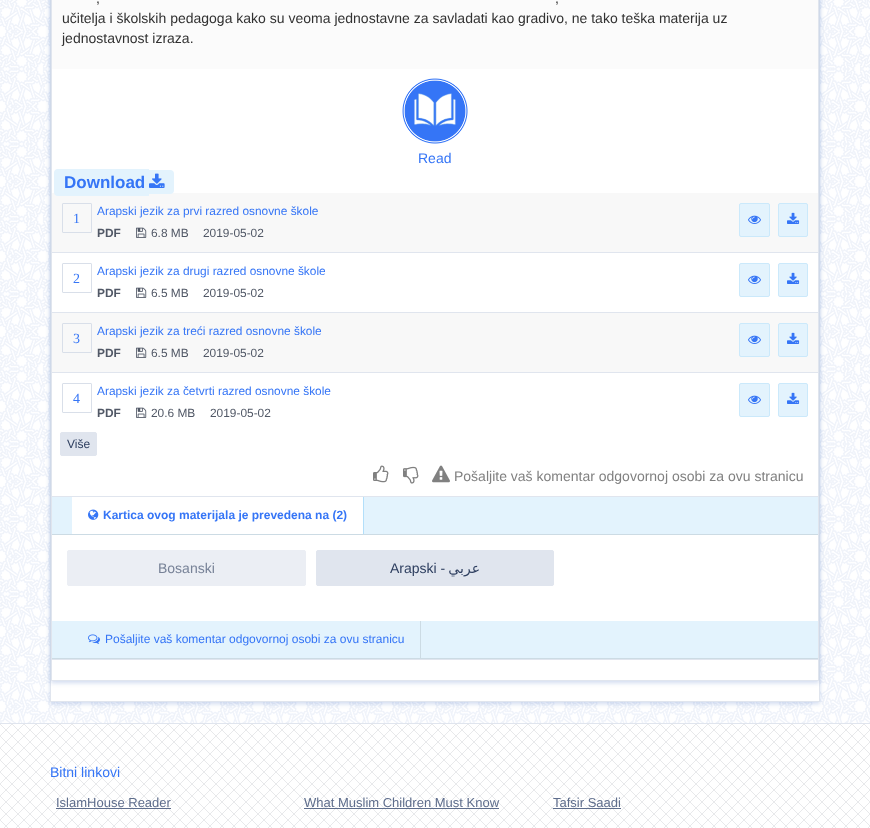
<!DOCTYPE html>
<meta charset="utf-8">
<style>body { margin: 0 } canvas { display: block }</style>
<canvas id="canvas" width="870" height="828"></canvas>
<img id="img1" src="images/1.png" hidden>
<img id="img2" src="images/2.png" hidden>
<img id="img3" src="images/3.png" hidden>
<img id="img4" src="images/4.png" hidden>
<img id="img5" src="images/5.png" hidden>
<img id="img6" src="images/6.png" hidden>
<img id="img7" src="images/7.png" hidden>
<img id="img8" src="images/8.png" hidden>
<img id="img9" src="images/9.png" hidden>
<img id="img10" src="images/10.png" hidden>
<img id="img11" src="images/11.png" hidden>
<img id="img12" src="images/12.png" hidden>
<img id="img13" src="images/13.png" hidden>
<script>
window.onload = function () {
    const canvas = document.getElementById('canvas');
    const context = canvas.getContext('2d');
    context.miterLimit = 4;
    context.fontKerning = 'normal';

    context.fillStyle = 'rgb(255, 255, 255)';
    context.fillRect(0, 0, 870, 828);
    context.drawImage(document.getElementById('img1'), 0, 0, 870, 723);
    context.fillStyle = 'rgba(29, 79, 179, 0.2)';
    context.filter = 'blur(2px)';
    context.beginPath();
    context.rect(50, -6, 770, 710);
    context.fill();
    context.filter = 'none';
    context.fillStyle = 'rgb(255, 255, 255)';
    context.fillRect(51, 69, 768, 632);
    context.strokeStyle = 'rgb(224, 229, 238)';
    context.strokeRect(50.5, -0.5, 769, 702);
    context.save();
    context.beginPath();
    context.moveTo(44, 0);
    context.lineTo(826, 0);
    context.lineTo(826, 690);
    context.lineTo(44, 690);
    context.closePath();
    context.moveTo(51, -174);
    context.lineTo(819, -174);
    context.lineTo(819, 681);
    context.lineTo(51, 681);
    context.closePath();
    context.clip('evenodd');
    context.fillStyle = 'rgba(29, 79, 179, 0.2)';
    context.filter = 'blur(2px)';
    context.beginPath();
    context.rect(51, -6, 768, 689);
    context.fill();
    context.filter = 'none';
    context.restore();
    context.strokeRect(51.5, -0.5, 767, 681);
    context.fillStyle = 'rgb(251, 251, 251)';
    context.fillRect(52, 0, 766, 69);
    context.drawImage(document.getElementById('img2'), 402, 78, 66, 66);
    context.fillStyle = 'rgb(248, 248, 248)';
    context.fillRect(52, 193, 766, 59);
    context.fillStyle = 'rgb(227, 243, 253)';
    context.beginPath();
    context.roundRect(54, 169, 95, 27, [4, 0, 0, 4]);
    context.fill();
    context.beginPath();
    context.roundRect(149, 170, 25, 24, [0, 4, 4, 0]);
    context.fill();
    context.drawImage(document.getElementById('img3'), 149, 173, 16, 15);
    context.fillStyle = 'rgb(224, 229, 238)';
    context.fillRect(52, 252, 766, 1);
    context.beginPath();
    context.roundRect(62.5, 203.5, 29, 29, 0.5);
    context.strokeStyle = 'rgb(217, 223, 233)';
    context.stroke();
    context.drawImage(document.getElementById('img4'), 136, 227, 11, 11);
    context.fillStyle = 'rgb(227, 243, 253)';
    context.beginPath();
    context.roundRect(739.5, 203.5, 30, 33, 1.5);
    context.fill();
    context.strokeStyle = 'rgb(203, 233, 251)';
    context.stroke();
    context.drawImage(document.getElementById('img5'), 748, 215, 13, 9);
    context.beginPath();
    context.roundRect(778.5, 203.5, 29, 33, 1.5);
    context.fill();
    context.stroke();
    context.drawImage(document.getElementById('img6'), 787, 212, 13, 12);
    context.fillStyle = 'rgb(224, 229, 238)';
    context.fillRect(52, 312, 766, 1);
    context.beginPath();
    context.roundRect(62.5, 263.5, 29, 29, 0.5);
    context.strokeStyle = 'rgb(217, 223, 233)';
    context.stroke();
    context.drawImage(document.getElementById('img7'), 136, 287, 11, 11);
    context.fillStyle = 'rgb(227, 243, 253)';
    context.beginPath();
    context.roundRect(739.5, 263.5, 30, 33, 1.5);
    context.fill();
    context.strokeStyle = 'rgb(203, 233, 251)';
    context.stroke();
    context.drawImage(document.getElementById('img5'), 748, 275, 13, 9);
    context.beginPath();
    context.roundRect(778.5, 263.5, 29, 33, 1.5);
    context.fill();
    context.stroke();
    context.drawImage(document.getElementById('img6'), 787, 272, 13, 12);
    context.fillStyle = 'rgb(248, 248, 248)';
    context.fillRect(52, 313, 766, 59);
    context.fillStyle = 'rgb(224, 229, 238)';
    context.fillRect(52, 372, 766, 1);
    context.beginPath();
    context.roundRect(62.5, 323.5, 29, 29, 0.5);
    context.strokeStyle = 'rgb(217, 223, 233)';
    context.stroke();
    context.drawImage(document.getElementById('img4'), 136, 347, 11, 11);
    context.fillStyle = 'rgb(227, 243, 253)';
    context.beginPath();
    context.roundRect(739.5, 323.5, 30, 33, 1.5);
    context.fill();
    context.strokeStyle = 'rgb(203, 233, 251)';
    context.stroke();
    context.drawImage(document.getElementById('img5'), 748, 335, 13, 9);
    context.beginPath();
    context.roundRect(778.5, 323.5, 29, 33, 1.5);
    context.fill();
    context.stroke();
    context.drawImage(document.getElementById('img6'), 787, 332, 13, 12);
    context.beginPath();
    context.roundRect(62.5, 383.5, 29, 29, 0.5);
    context.strokeStyle = 'rgb(217, 223, 233)';
    context.stroke();
    context.drawImage(document.getElementById('img7'), 136, 407, 11, 11);
    context.beginPath();
    context.roundRect(739.5, 383.5, 30, 33, 1.5);
    context.fill();
    context.strokeStyle = 'rgb(203, 233, 251)';
    context.stroke();
    context.drawImage(document.getElementById('img5'), 748, 395, 13, 9);
    context.beginPath();
    context.roundRect(778.5, 383.5, 29, 33, 1.5);
    context.fill();
    context.stroke();
    context.drawImage(document.getElementById('img6'), 787, 392, 13, 12);
    context.fillStyle = 'rgb(224, 229, 238)';
    context.beginPath();
    context.roundRect(60.5, 432.5, 36, 23, 1.5);
    context.fill();
    context.strokeStyle = 'rgb(224, 229, 238)';
    context.stroke();
    context.drawImage(document.getElementById('img8'), 373, 465, 16, 18);
    context.drawImage(document.getElementById('img9'), 403, 466, 16, 18);
    context.drawImage(document.getElementById('img10'), 432, 465, 18, 18);
    context.fillStyle = 'rgb(227, 243, 253)';
    context.fillRect(52, 497, 766, 37);
    context.fillStyle = 'rgb(224, 229, 238)';
    context.fillRect(52, 496, 766, 1);
    context.fillStyle = 'rgb(204, 219, 228)';
    context.fillRect(52, 534, 766, 1);
    context.fillStyle = 'rgb(255, 255, 255)';
    context.fillRect(72, 497, 291, 37);
    context.fillStyle = 'rgb(179, 223, 250)';
    context.fillRect(363, 497, 1, 37);
    context.drawImage(document.getElementById('img11'), 88, 509, 11, 11);
    context.fillStyle = 'rgb(235, 238, 244)';
    context.beginPath();
    context.roundRect(67.5, 550.5, 238, 35, 1.5);
    context.fill();
    context.strokeStyle = 'rgb(235, 238, 244)';
    context.stroke();
    context.fillStyle = 'rgb(224, 229, 238)';
    context.beginPath();
    context.roundRect(316.5, 550.5, 237, 35, 1.5);
    context.fill();
    context.strokeStyle = 'rgb(224, 229, 238)';
    context.stroke();
    context.fillStyle = 'rgb(227, 243, 253)';
    context.fillRect(52, 621, 766, 37);
    context.fillStyle = 'rgb(224, 229, 238)';
    context.fillRect(52, 659, 766, 1);
    context.fillStyle = 'rgb(204, 219, 228)';
    context.fillRect(52, 658, 766, 1);
    context.fillRect(420, 621, 1, 37);
    context.drawImage(document.getElementById('img12'), 88, 634, 12, 10);
    context.drawImage(document.getElementById('img13'), 0, 724, 870, 104);
    context.fillStyle = 'rgb(224, 229, 238)';
    context.fillRect(0, 723, 870, 1);
    context.fillStyle = 'rgb(94, 109, 140)';
    context.fillRect(56, 808, 115, 1);
    context.fillRect(304, 808, 195, 1);
    context.fillRect(553, 808, 68, 1);
    context.font = '14px Liberation Sans';
    context.fillStyle = 'rgb(49, 49, 49)';
    context.fillText(',', 96, 3);
    context.fillText(',', 555, 3);
    context.fillText('učitelja i školskih pedagoga kako su veoma jednostavne za savladati kao gradivo, ne tako teška materija uz', 62, 23);
    context.fillText('jednostavnost izraza.', 62, 43);
    context.fillStyle = 'rgb(53, 117, 246)';
    context.fillText('Read', 418, 163);
    context.font = 'bold 17px Liberation Sans';
    context.fillText('Download', 64, 188);
    context.font = '14px Liberation Serif';
    context.fillText('1', 73, 223);
    context.font = '11.9px Liberation Sans';
    context.fillText('Arapski jezik za prvi razred osnovne škole', 97, 215);
    context.font = 'bold 11.9px Liberation Sans';
    context.fillStyle = 'rgb(81, 88, 102)';
    context.fillText('PDF', 97, 237);
    context.font = '11.9px Liberation Sans';
    context.fillText('6.8 MB', 151, 237);
    context.fillText('2019-05-02', 203, 237);
    context.font = '14px Liberation Serif';
    context.fillStyle = 'rgb(53, 117, 246)';
    context.fillText('2', 73, 283);
    context.font = '11.9px Liberation Sans';
    context.fillText('Arapski jezik za drugi razred osnovne škole', 97, 275);
    context.font = 'bold 11.9px Liberation Sans';
    context.fillStyle = 'rgb(81, 88, 102)';
    context.fillText('PDF', 97, 297);
    context.font = '11.9px Liberation Sans';
    context.fillText('6.5 MB', 151, 297);
    context.fillText('2019-05-02', 203, 297);
    context.font = '14px Liberation Serif';
    context.fillStyle = 'rgb(53, 117, 246)';
    context.fillText('3', 73, 343);
    context.font = '11.9px Liberation Sans';
    context.fillText('Arapski jezik za treći razred osnovne škole', 97, 335);
    context.font = 'bold 11.9px Liberation Sans';
    context.fillStyle = 'rgb(81, 88, 102)';
    context.fillText('PDF', 97, 357);
    context.font = '11.9px Liberation Sans';
    context.fillText('6.5 MB', 151, 357);
    context.fillText('2019-05-02', 203, 357);
    context.font = '14px Liberation Serif';
    context.fillStyle = 'rgb(53, 117, 246)';
    context.fillText('4', 73, 403);
    context.font = '11.9px Liberation Sans';
    context.fillText('Arapski jezik za četvrti razred osnovne škole', 97, 395);
    context.font = 'bold 11.9px Liberation Sans';
    context.fillStyle = 'rgb(81, 88, 102)';
    context.fillText('PDF', 97, 417);
    context.font = '11.9px Liberation Sans';
    context.fillText('20.6 MB', 151, 417);
    context.fillText('2019-05-02', 210, 417);
    context.font = '12px Liberation Sans';
    context.fillStyle = 'rgb(45, 62, 95)';
    context.fillText('Više', 67, 448);
    context.font = '14px Liberation Sans';
    context.fillStyle = 'rgb(128, 128, 128)';
    context.fillText('Pošaljite vaš komentar odgovornoj osobi za ovu stranicu', 454, 481);
    context.font = 'bold 12px Liberation Sans';
    context.fillStyle = 'rgb(53, 117, 246)';
    context.fillText('Kartica ovog materijala je prevedena na (2)', 103, 519);
    context.font = '14px Liberation Sans';
    context.fillStyle = 'rgb(119, 130, 151)';
    context.fillText('Bosanski', 158, 573);
    context.fillStyle = 'rgb(45, 62, 95)';
    context.fillText('Arapski -', 390, 573);
    context.direction = 'rtl';
    context.font = '14px DejaVu Sans';
    context.fillText('عربي', 480, 573);
    context.direction = 'ltr';
    context.font = '12px Liberation Sans';
    context.fillStyle = 'rgb(53, 117, 246)';
    context.fillText('Pošaljite vaš komentar odgovornoj osobi za ovu stranicu', 105, 643);
    context.font = '14px Liberation Sans';
    context.fillText('Bitni linkovi', 50, 777);
    context.font = '13px Liberation Sans';
    context.fillStyle = 'rgb(94, 109, 140)';
    context.fillText('IslamHouse Reader', 56, 807);
    context.fillText('What Muslim Children Must Know', 304, 807);
    context.fillText('Tafsir Saadi', 553, 807);
};
</script>
